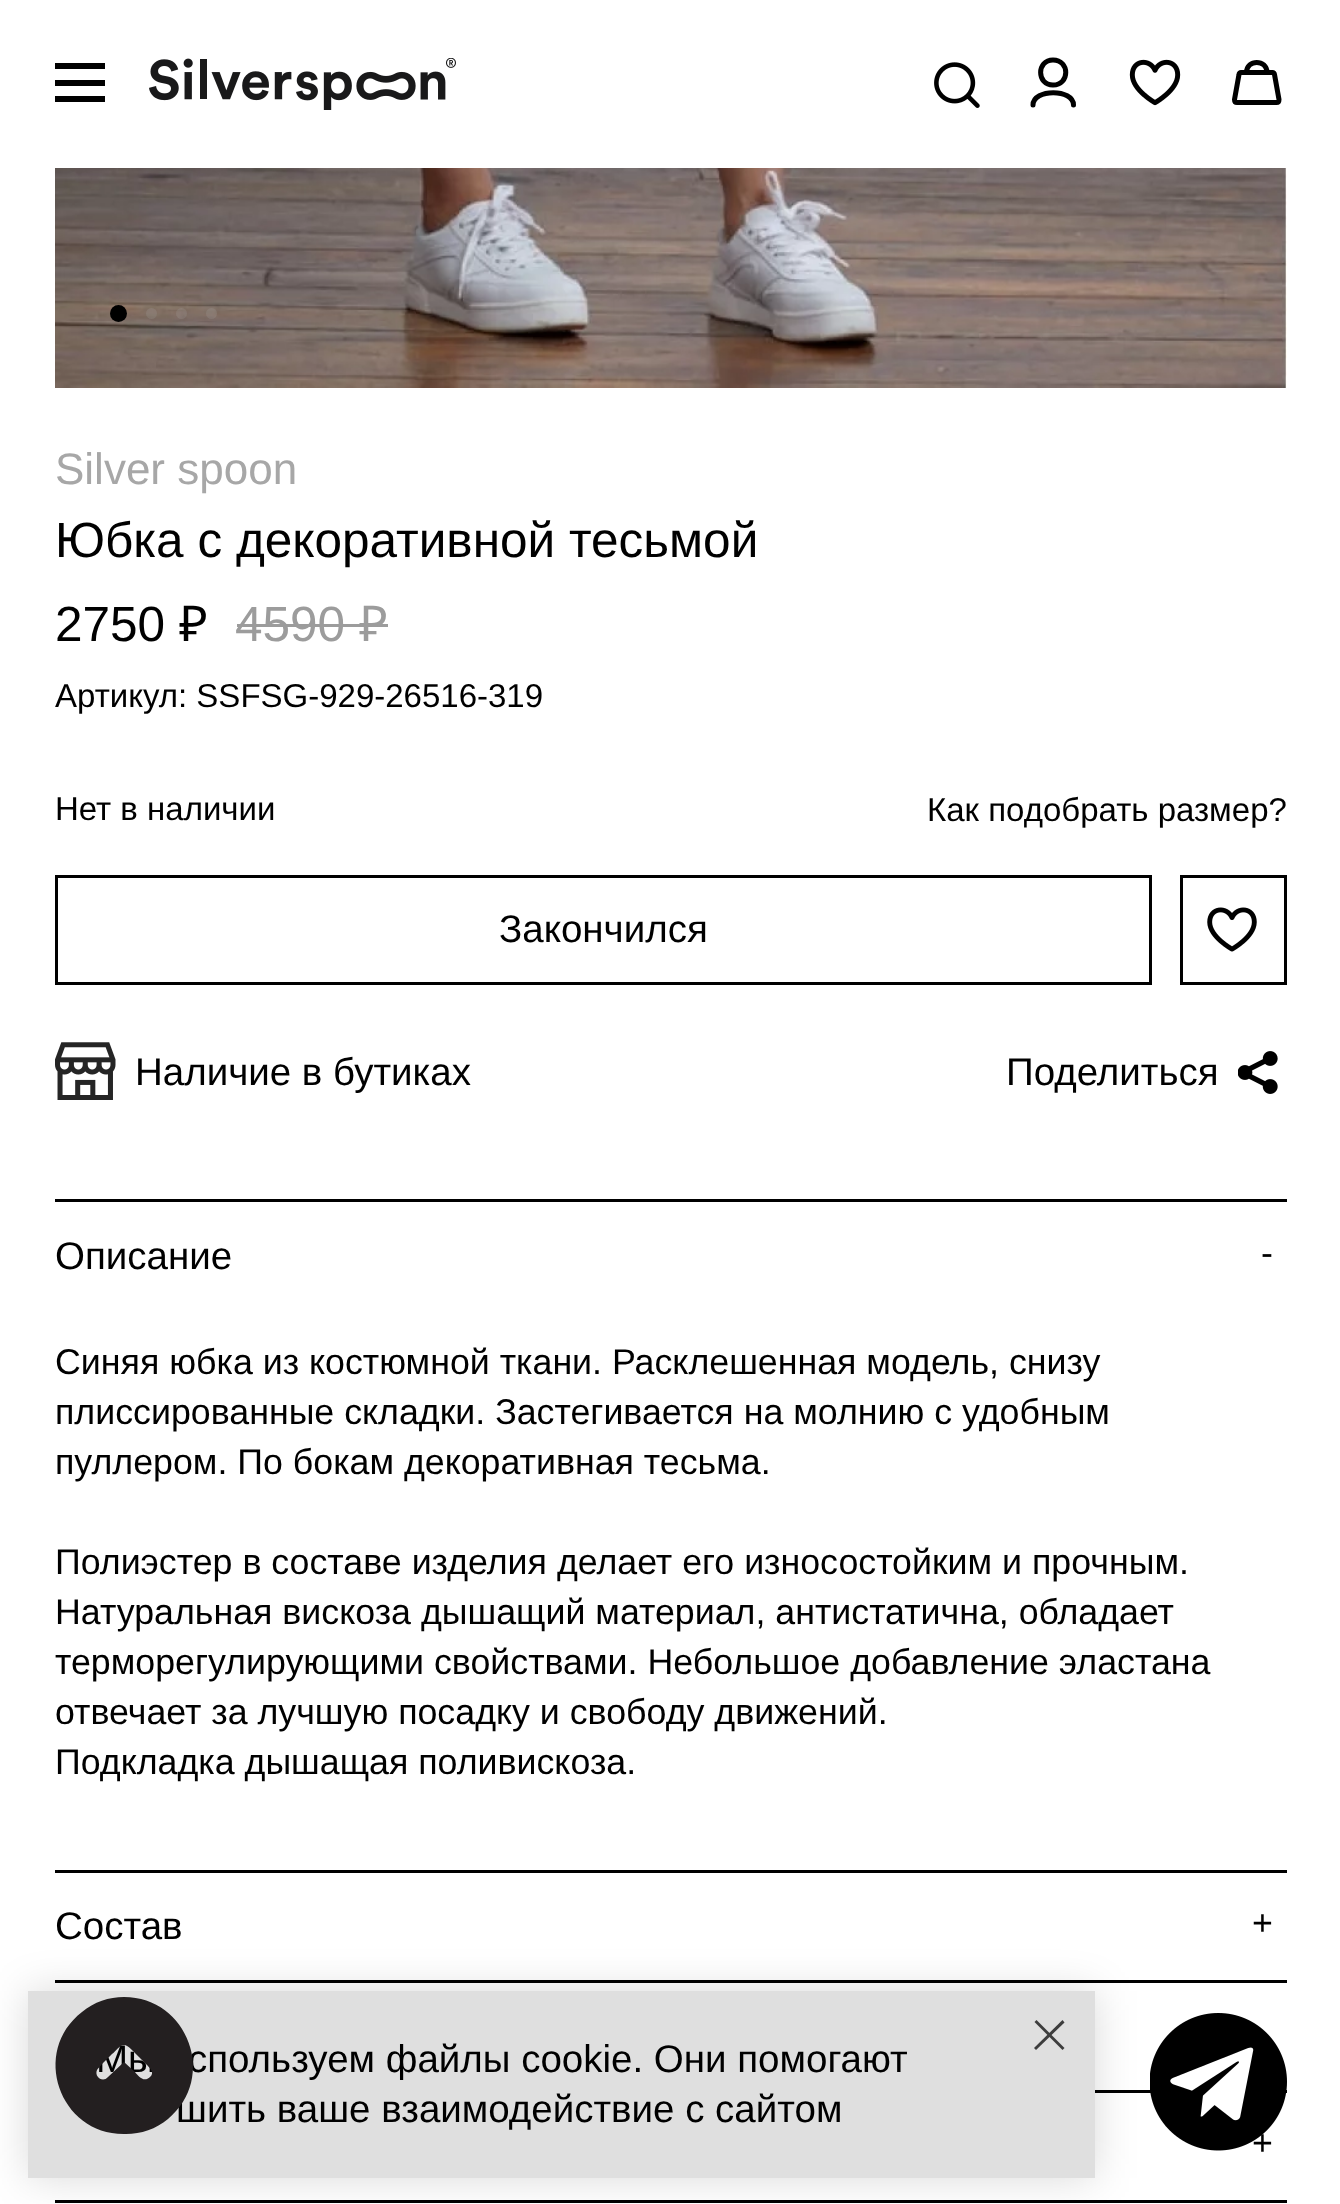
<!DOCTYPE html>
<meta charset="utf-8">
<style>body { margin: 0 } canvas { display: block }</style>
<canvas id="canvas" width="1340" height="2204"></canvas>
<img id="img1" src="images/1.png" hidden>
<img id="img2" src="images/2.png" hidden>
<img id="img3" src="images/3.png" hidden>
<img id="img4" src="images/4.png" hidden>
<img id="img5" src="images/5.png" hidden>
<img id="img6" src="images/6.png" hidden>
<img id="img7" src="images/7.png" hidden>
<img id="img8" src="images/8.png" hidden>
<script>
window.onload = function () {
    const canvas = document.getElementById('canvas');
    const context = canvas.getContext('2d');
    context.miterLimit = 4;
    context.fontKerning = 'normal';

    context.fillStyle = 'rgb(255, 255, 255)';
    context.fillRect(0, 0, 1340, 2204);
    context.fillStyle = 'rgb(0, 0, 0)';
    context.fillRect(55, 63, 50, 6);
    context.fillRect(55, 80, 50, 6);
    context.fillRect(55, 96, 50, 6);
    context.drawImage(document.getElementById('img1'), 149, 58, 307, 52);
    context.drawImage(document.getElementById('img2'), 934, 62, 46, 46);
    context.beginPath();
    context.moveTo(1033, 105);
    context.bezierCurveTo(1033, 88.5, 1073.5, 88.5, 1073.5, 105);
    context.moveTo(1053, 85);
    context.bezierCurveTo(1070, 85, 1070, 60, 1053, 60);
    context.bezierCurveTo(1036.5, 60, 1036.5, 85, 1053, 85);
    context.closePath();
    context.strokeStyle = 'rgb(0, 0, 0)';
    context.lineWidth = 5;
    context.lineCap = 'round';
    context.lineJoin = 'round';
    context.stroke();
    context.drawImage(document.getElementById('img3'), 1129, 59, 52, 47);
    context.beginPath();
    context.moveTo(1272.5, 72.5);
    context.lineTo(1241, 72.5);
    context.bezierCurveTo(1240, 72.5, 1239, 73.5, 1239, 74.5);
    context.lineTo(1234.5, 99.5);
    context.bezierCurveTo(1234.5, 101.5, 1235.5, 102.5, 1237, 102.5);
    context.lineTo(1276.5, 102.5);
    context.bezierCurveTo(1278, 102.5, 1279, 101.5, 1279, 99.5);
    context.lineTo(1274.5, 74.5);
    context.bezierCurveTo(1274.5, 73.5, 1273.5, 72.5, 1272.5, 72.5);
    context.closePath();
    context.moveTo(1246.5, 72.5);
    context.bezierCurveTo(1246.5, 59, 1267, 59, 1267, 72.5);
    context.stroke();
    context.drawImage(document.getElementById('img4'), 55, 168, 1232, 220);
    context.beginPath();
    context.arc(118.5, 313.5, 8.5, 0, 2 * Math.PI);
    context.fill();
    context.fillStyle = 'rgba(170, 170, 170, 0.2)';
    context.beginPath();
    context.arc(151.5, 313.5, 5.5, 0, 2 * Math.PI);
    context.fill();
    context.beginPath();
    context.arc(181.5, 313.5, 5.5, 0, 2 * Math.PI);
    context.fill();
    context.beginPath();
    context.arc(211.5, 313.5, 5.5, 0, 2 * Math.PI);
    context.fill();
    context.fillStyle = 'rgb(156, 156, 156)';
    context.fillRect(237, 624, 151, 3);
    context.lineWidth = 3;
    context.lineJoin = 'miter';
    context.strokeRect(56.5, 876.5, 1094, 107);
    context.strokeRect(1181.5, 876.5, 104, 107);
    context.drawImage(document.getElementById('img5'), 1207, 907, 50, 45);
    context.drawImage(document.getElementById('img6'), 55, 1042, 61, 58);
    context.drawImage(document.getElementById('img7'), 1238, 1051, 40, 43);
    context.fillStyle = 'rgb(0, 0, 0)';
    context.fillRect(55, 1199, 1232, 3);
    context.fillRect(55, 1870, 1232, 3);
    context.fillRect(55, 1980, 1232, 3);
    context.fillRect(1095, 2090, 192, 3);
    context.fillRect(55, 2200, 1232, 3);
    context.fillStyle = 'rgba(0, 0, 0, 0.15)';
    context.filter = 'blur(20.5px)';
    context.beginPath();
    context.rect(28, 1991, 1067, 187);
    context.fill();
    context.filter = 'none';
    context.fillStyle = 'rgb(223, 223, 223)';
    context.fillRect(28, 1991, 1067, 187);
    context.fillStyle = 'rgb(61, 61, 61)';
    context.beginPath();
    context.moveTo(1034, 2048);
    context.lineTo(1062.5, 2020);
    context.lineTo(1064.5, 2022.5);
    context.lineTo(1036, 2050);
    context.closePath();
    context.fill();
    context.beginPath();
    context.moveTo(1062.5, 2050);
    context.lineTo(1034.5, 2022);
    context.lineTo(1036.5, 2020);
    context.lineTo(1064.5, 2048);
    context.closePath();
    context.fill();
    context.font = '44px Liberation Sans';
    context.fillStyle = 'rgb(167, 167, 167)';
    context.fillText('Silver spoon', 55, 484);
    context.font = '49.5px Liberation Sans';
    context.fillStyle = 'rgb(0, 0, 0)';
    context.fillText('Юбка с декоративной тесьмой', 55, 557);
    context.fillText('2750', 55, 641);
    context.font = '49.5px Noto Sans';
    context.fillText('₽', 179, 641);
    context.font = '49.5px Liberation Sans';
    context.fillStyle = 'rgb(156, 156, 156)';
    context.fillText('4590', 235, 641);
    context.font = '49.5px Noto Sans';
    context.fillText('₽', 359, 641);
    context.font = '33px Liberation Sans';
    context.fillStyle = 'rgb(0, 0, 0)';
    context.fillText('Артикул: SSFSG-929-26516-319', 55, 707);
    context.fillText('Нет в наличии', 55, 820);
    context.fillText('Как подобрать размер?', 927, 821);
    context.font = '38.5px Liberation Sans';
    context.fillText('Закончился', 499, 942);
    context.fillText('Наличие в бутиках', 135, 1085);
    context.fillText('Поделиться', 1006, 1085);
    context.fillText('Описание', 55, 1269);
    context.font = '35.75px Liberation Sans';
    context.fillText('-', 1261, 1265);
    context.fillText('Синяя юбка из костюмной ткани. Расклешенная модель, снизу', 55, 1374);
    context.fillText('плиссированные складки. Застегивается на молнию с удобным', 55, 1424);
    context.fillText('пуллером. По бокам декоративная тесьма.', 55, 1474);
    context.fillText('Полиэстер в составе изделия делает его износостойким и прочным.', 55, 1574);
    context.fillText('Натуральная вискоза дышащий материал, антистатична, обладает', 55, 1624);
    context.fillText('терморегулирующими свойствами. Небольшое добавление эластана', 55, 1674);
    context.fillText('отвечает за лучшую посадку и свободу движений.', 55, 1724);
    context.fillText('Подкладка дышащая поливискоза.', 55, 1774);
    context.font = '38.5px Liberation Sans';
    context.fillText('Состав', 55, 1939);
    context.font = '35.75px Liberation Sans';
    context.fillText('+', 1252, 1935);
    context.fillText('+', 1252, 2155);
    context.drawImage(document.getElementById('img8'), 1150, 2013, 137, 138);
    context.font = '38.5px Liberation Sans';
    context.fillText('Мы используем файлы cookie. Они помогают', 96, 2072);
    context.fillText('шить ваше взаимодействие с сайтом', 176, 2122);
    context.fillStyle = 'rgb(35, 31, 32)';
    context.beginPath();
    context.moveTo(124, 1997);
    context.bezierCurveTo(109, 1997, 94, 2002, 82, 2012);
    context.bezierCurveTo(30, 2052, 60, 2136, 126, 2134);
    context.bezierCurveTo(141, 2134, 156, 2129, 168, 2119);
    context.bezierCurveTo(218, 2078, 188, 1997, 124, 1997);
    context.closePath();
    context.moveTo(150, 2077);
    context.bezierCurveTo(144, 2083, 138, 2076, 135, 2072);
    context.lineTo(124, 2062);
    context.lineTo(108, 2077);
    context.bezierCurveTo(103, 2083, 94, 2077, 97, 2070);
    context.bezierCurveTo(98, 2068, 101, 2066, 102, 2064);
    context.lineTo(112, 2054);
    context.bezierCurveTo(116, 2051, 120, 2044, 125, 2045);
    context.bezierCurveTo(128, 2046, 130, 2048, 133, 2051);
    context.lineTo(146, 2064);
    context.bezierCurveTo(150, 2068, 155, 2073, 150, 2077);
    context.closePath();
    context.fill();
};
</script>
